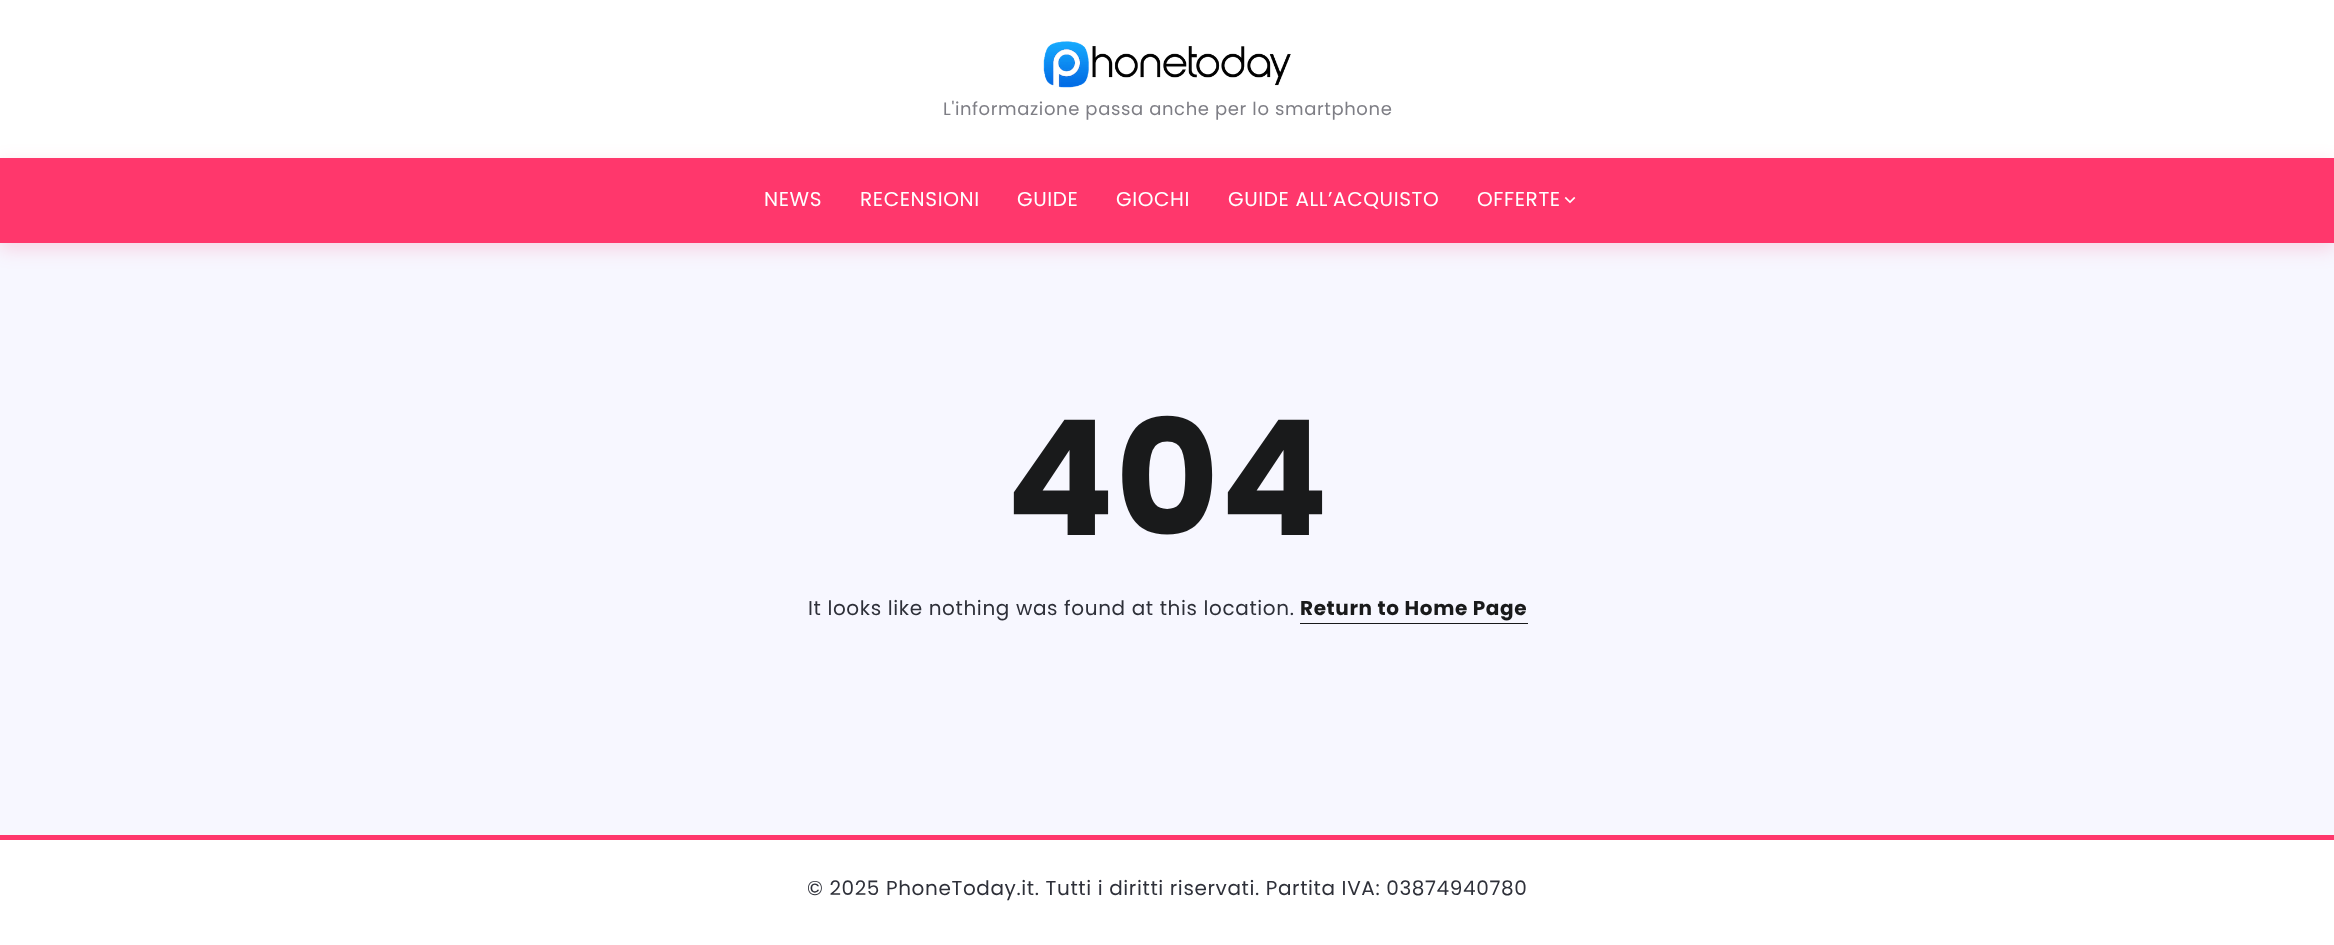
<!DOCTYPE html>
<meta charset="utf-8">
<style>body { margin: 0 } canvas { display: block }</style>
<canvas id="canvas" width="2334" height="945"></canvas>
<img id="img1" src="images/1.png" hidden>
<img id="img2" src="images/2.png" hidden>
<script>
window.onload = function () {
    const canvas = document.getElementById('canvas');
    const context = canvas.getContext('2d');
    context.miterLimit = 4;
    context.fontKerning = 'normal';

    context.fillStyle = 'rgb(247, 247, 255)';
    context.fillRect(0, 0, 2334, 945);
    context.fillStyle = 'rgb(255, 255, 255)';
    context.fillRect(0, 0, 2334, 158);
    context.drawImage(document.getElementById('img1'), 1043, 41, 248, 47);
    context.fillStyle = 'rgba(255, 55, 108, 0.19)';
    context.filter = 'blur(9.5px)';
    context.beginPath();
    context.rect(0, 164, 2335, 85);
    context.fill();
    context.filter = 'none';
    context.fillStyle = 'rgb(255, 55, 108)';
    context.fillRect(0, 158, 2334, 85);
    context.drawImage(document.getElementById('img2'), 1564, 196, 12, 8);
    context.fillStyle = 'rgb(25, 26, 27)';
    context.fillRect(1300, 623, 228, 1);
    context.fillStyle = 'rgb(255, 255, 255)';
    context.fillRect(0, 840, 2334, 105);
    context.fillStyle = 'rgb(255, 55, 108)';
    context.fillRect(0, 835, 2334, 5);
    context.letterSpacing = '0.62px';
    context.font = '18px Poppins';
    context.fillStyle = 'rgb(126, 126, 133)';
    context.fillText('L\'informazione passa anche per lo smartphone', 943, 115);
    context.font = '20px Poppins';
    context.fillStyle = 'rgb(255, 255, 255)';
    context.fillText('NEWS', 764, 206);
    context.fillText('RECENSIONI', 860, 206);
    context.fillText('GUIDE', 1017, 206);
    context.fillText('GIOCHI', 1116, 206);
    context.fillText('GUIDE ALL’ACQUISTO', 1228, 206);
    context.fillText('OFFERTE', 1477, 206);
    context.font = 'bold 160px Poppins';
    context.fillStyle = 'rgb(25, 26, 27)';
    context.fillText('404', 1006, 535);
    context.font = '20px Poppins';
    context.fillStyle = 'rgb(46, 48, 57)';
    context.fillText('It looks like nothing was found at this location.', 808, 615);
    context.font = 'bold 20px Poppins';
    context.fillStyle = 'rgb(25, 26, 27)';
    context.fillText('Return to Home Page', 1300, 615);
    context.font = '20px Poppins';
    context.fillStyle = 'rgb(46, 48, 57)';
    context.fillText('© 2025 PhoneToday.it. Tutti i diritti riservati. Partita IVA: 03874940780', 807, 895);
};
</script>
